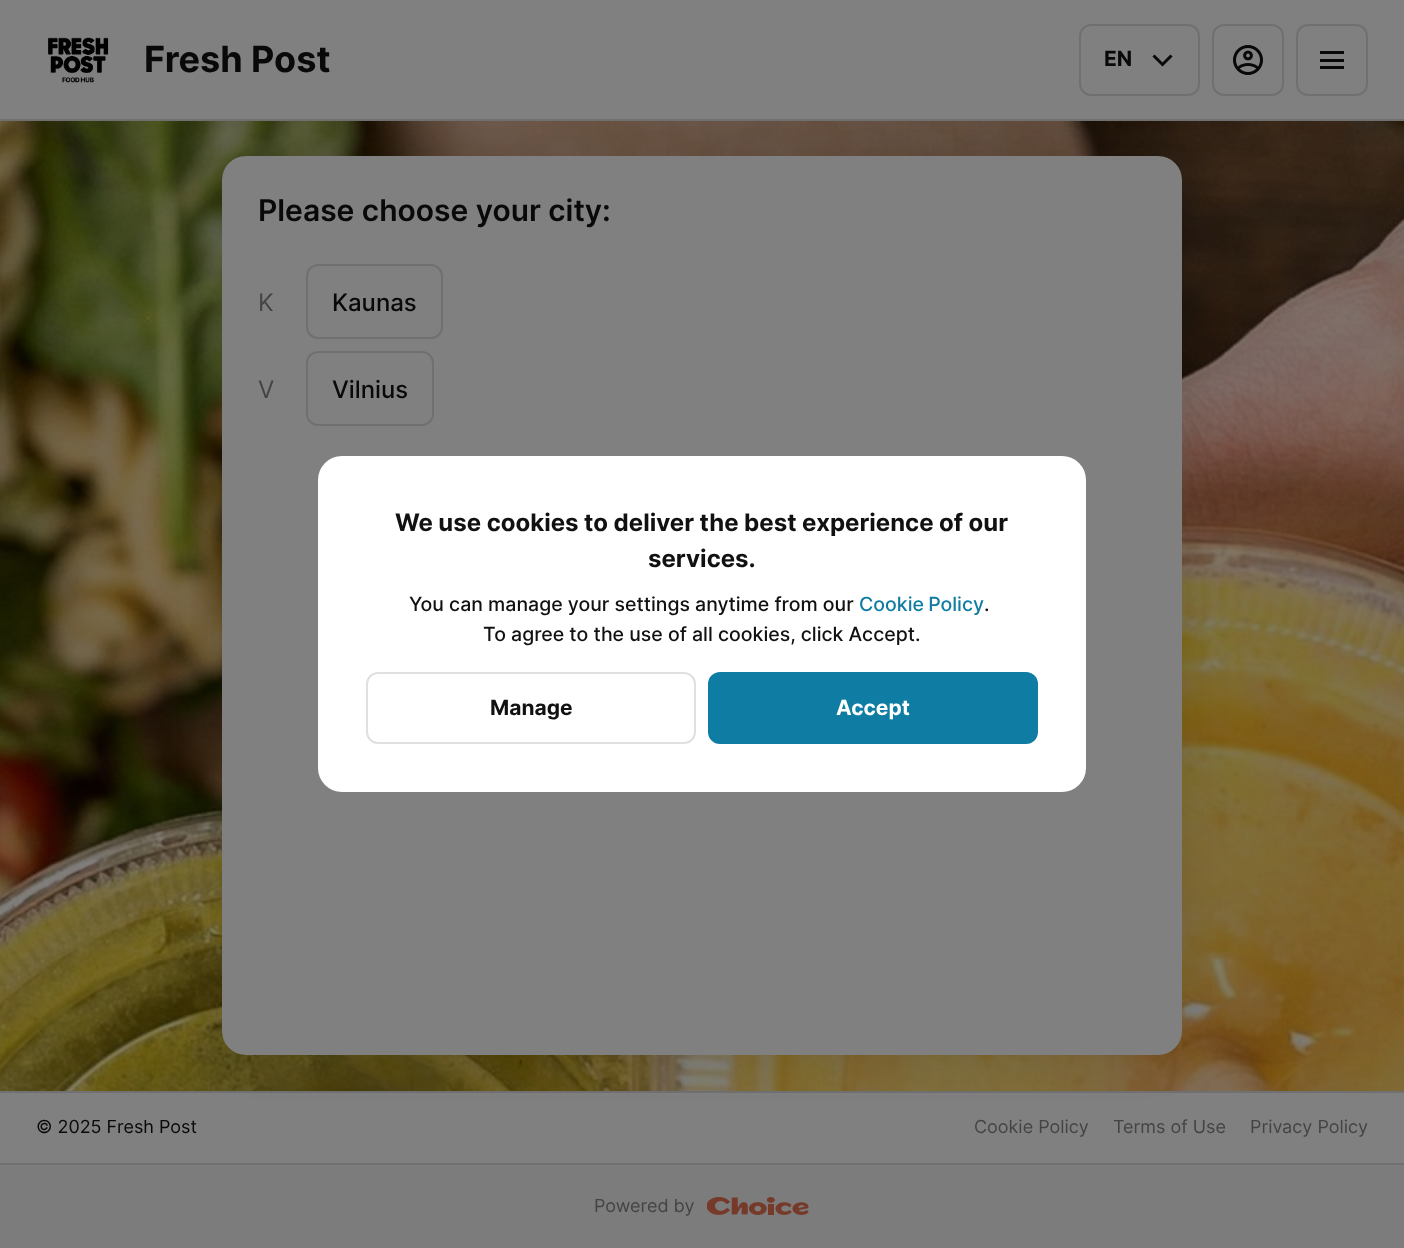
<!DOCTYPE html>
<meta charset="utf-8">
<style>body { margin: 0 } canvas { display: block }</style>
<canvas id="canvas" width="1404" height="1248"></canvas>
<img id="img1" src="images/4.png" hidden>
<img id="img2" src="images/1.png" hidden>
<img id="img3" src="images/2.png" hidden>
<img id="img4" src="images/3.png" hidden>
<script>
window.onload = function () {
    const canvas = document.getElementById('canvas');
    const context = canvas.getContext('2d');
    context.miterLimit = 4;
    context.fontKerning = 'normal';

    context.fillStyle = 'rgb(255, 255, 255)';
    context.fillRect(0, 0, 1404, 1248);
    context.fillStyle = 'rgb(128, 128, 128)';
    context.fillRect(0, 1093, 1404, 70);
    context.fillStyle = 'rgb(112, 112, 112)';
    context.fillRect(0, 1091, 1404, 2);
    context.drawImage(document.getElementById('img1'), 0, 121, 1404, 970);
    context.fillStyle = 'rgba(0, 0, 0, 0.1)';
    context.filter = 'blur(24px)';
    context.beginPath();
    context.roundRect(222, 156, 960, 899, 24);
    context.fill();
    context.filter = 'none';
    context.fillStyle = 'rgb(128, 128, 128)';
    context.fillRect(0, 0, 1404, 119);
    context.fillStyle = 'rgb(112, 112, 112)';
    context.fillRect(0, 119, 1404, 2);
    context.drawImage(document.getElementById('img2'), 48, 37, 61, 46);
    context.beginPath();
    context.roundRect(1080, 25, 119, 70, 11);
    context.strokeStyle = 'rgb(112, 112, 112)';
    context.lineWidth = 2;
    context.stroke();
    context.beginPath();
    context.moveTo(1153.5, 55.5);
    context.lineTo(1162.5, 64.5);
    context.lineTo(1171.5, 55.5);
    context.strokeStyle = 'rgb(9, 9, 9)';
    context.lineWidth = 3;
    context.stroke();
    context.beginPath();
    context.roundRect(1213, 25, 70, 70, 11);
    context.strokeStyle = 'rgb(112, 112, 112)';
    context.lineWidth = 2;
    context.stroke();
    context.drawImage(document.getElementById('img3'), 1233, 45, 30, 30);
    context.beginPath();
    context.roundRect(1297, 25, 70, 70, 11);
    context.stroke();
    context.fillStyle = 'rgb(9, 9, 9)';
    context.fillRect(1320, 51, 24, 3);
    context.fillRect(1320, 59, 24, 3);
    context.fillRect(1320, 66, 24, 3);
    context.fillStyle = 'rgb(128, 128, 128)';
    context.beginPath();
    context.roundRect(222, 156, 960, 899, 24);
    context.fill();
    context.beginPath();
    context.roundRect(307, 265, 135, 73, 11);
    context.stroke();
    context.beginPath();
    context.roundRect(307, 352, 126, 73, 11);
    context.stroke();
    context.fillStyle = 'rgb(124, 124, 124)';
    context.fillRect(0, 1165, 1404, 83);
    context.fillStyle = 'rgb(112, 112, 112)';
    context.fillRect(0, 1163, 1404, 2);
    context.drawImage(document.getElementById('img4'), 707, 1197, 102, 18);
    context.fillStyle = 'rgb(255, 255, 255)';
    context.beginPath();
    context.roundRect(318, 456, 768, 336, 24);
    context.fill();
    context.beginPath();
    context.roundRect(367, 673, 328, 70, 11);
    context.strokeStyle = 'rgb(224, 224, 224)';
    context.stroke();
    context.fillStyle = 'rgb(15, 125, 163)';
    context.beginPath();
    context.roundRect(708, 672, 330, 72, 12);
    context.fill();
    context.font = 'bold 36px Inter';
    context.fillStyle = 'rgb(9, 9, 9)';
    context.fillText('Fresh Post', 144, 72);
    context.font = 'bold 21px Inter';
    context.fillText('EN', 1104, 66);
    context.font = '600 30px Inter';
    context.fillText('Please choose your city:', 258, 221);
    context.font = '24px Inter';
    context.fillStyle = 'rgb(68, 68, 68)';
    context.fillText('K', 258, 311);
    context.font = '500 24px Inter';
    context.fillStyle = 'rgb(9, 9, 9)';
    context.fillText('Kaunas', 332, 311);
    context.font = '24px Inter';
    context.fillStyle = 'rgb(68, 68, 68)';
    context.fillText('V', 258, 398);
    context.font = '500 24px Inter';
    context.fillStyle = 'rgb(9, 9, 9)';
    context.fillText('Vilnius', 332, 398);
    context.font = '18px Inter';
    context.fillText('© 2025 Fresh Post', 36, 1133);
    context.fillStyle = 'rgb(68, 68, 68)';
    context.fillText('Cookie Policy', 974, 1133);
    context.fillText('Terms of Use', 1113, 1133);
    context.fillText('Privacy Policy', 1250, 1133);
    context.fillText('Powered by', 594, 1212);
    context.font = 'bold 24px Inter';
    context.fillStyle = 'rgb(17, 17, 17)';
    context.fillText('We use cookies to deliver the best experience of our', 395, 531);
    context.fillText('services.', 648, 567);
    context.font = '500 19.5px Inter';
    context.fillText('You can manage your settings anytime from our', 409, 611);
    context.wordSpacing = '-1px';
    context.fillStyle = 'rgb(15, 125, 163)';
    context.fillText('Cookie Policy', 859, 611);
    context.wordSpacing = '0px';
    context.fillStyle = 'rgb(17, 17, 17)';
    context.fillText('.', 984, 611);
    context.fillText('To agree to the use of all cookies, click Accept.', 483, 641);
    context.font = 'bold 21px Inter';
    context.fillText('Manage', 490, 715);
    context.fillStyle = 'rgb(255, 255, 255)';
    context.fillText('Accept', 836, 715);
};
</script>
